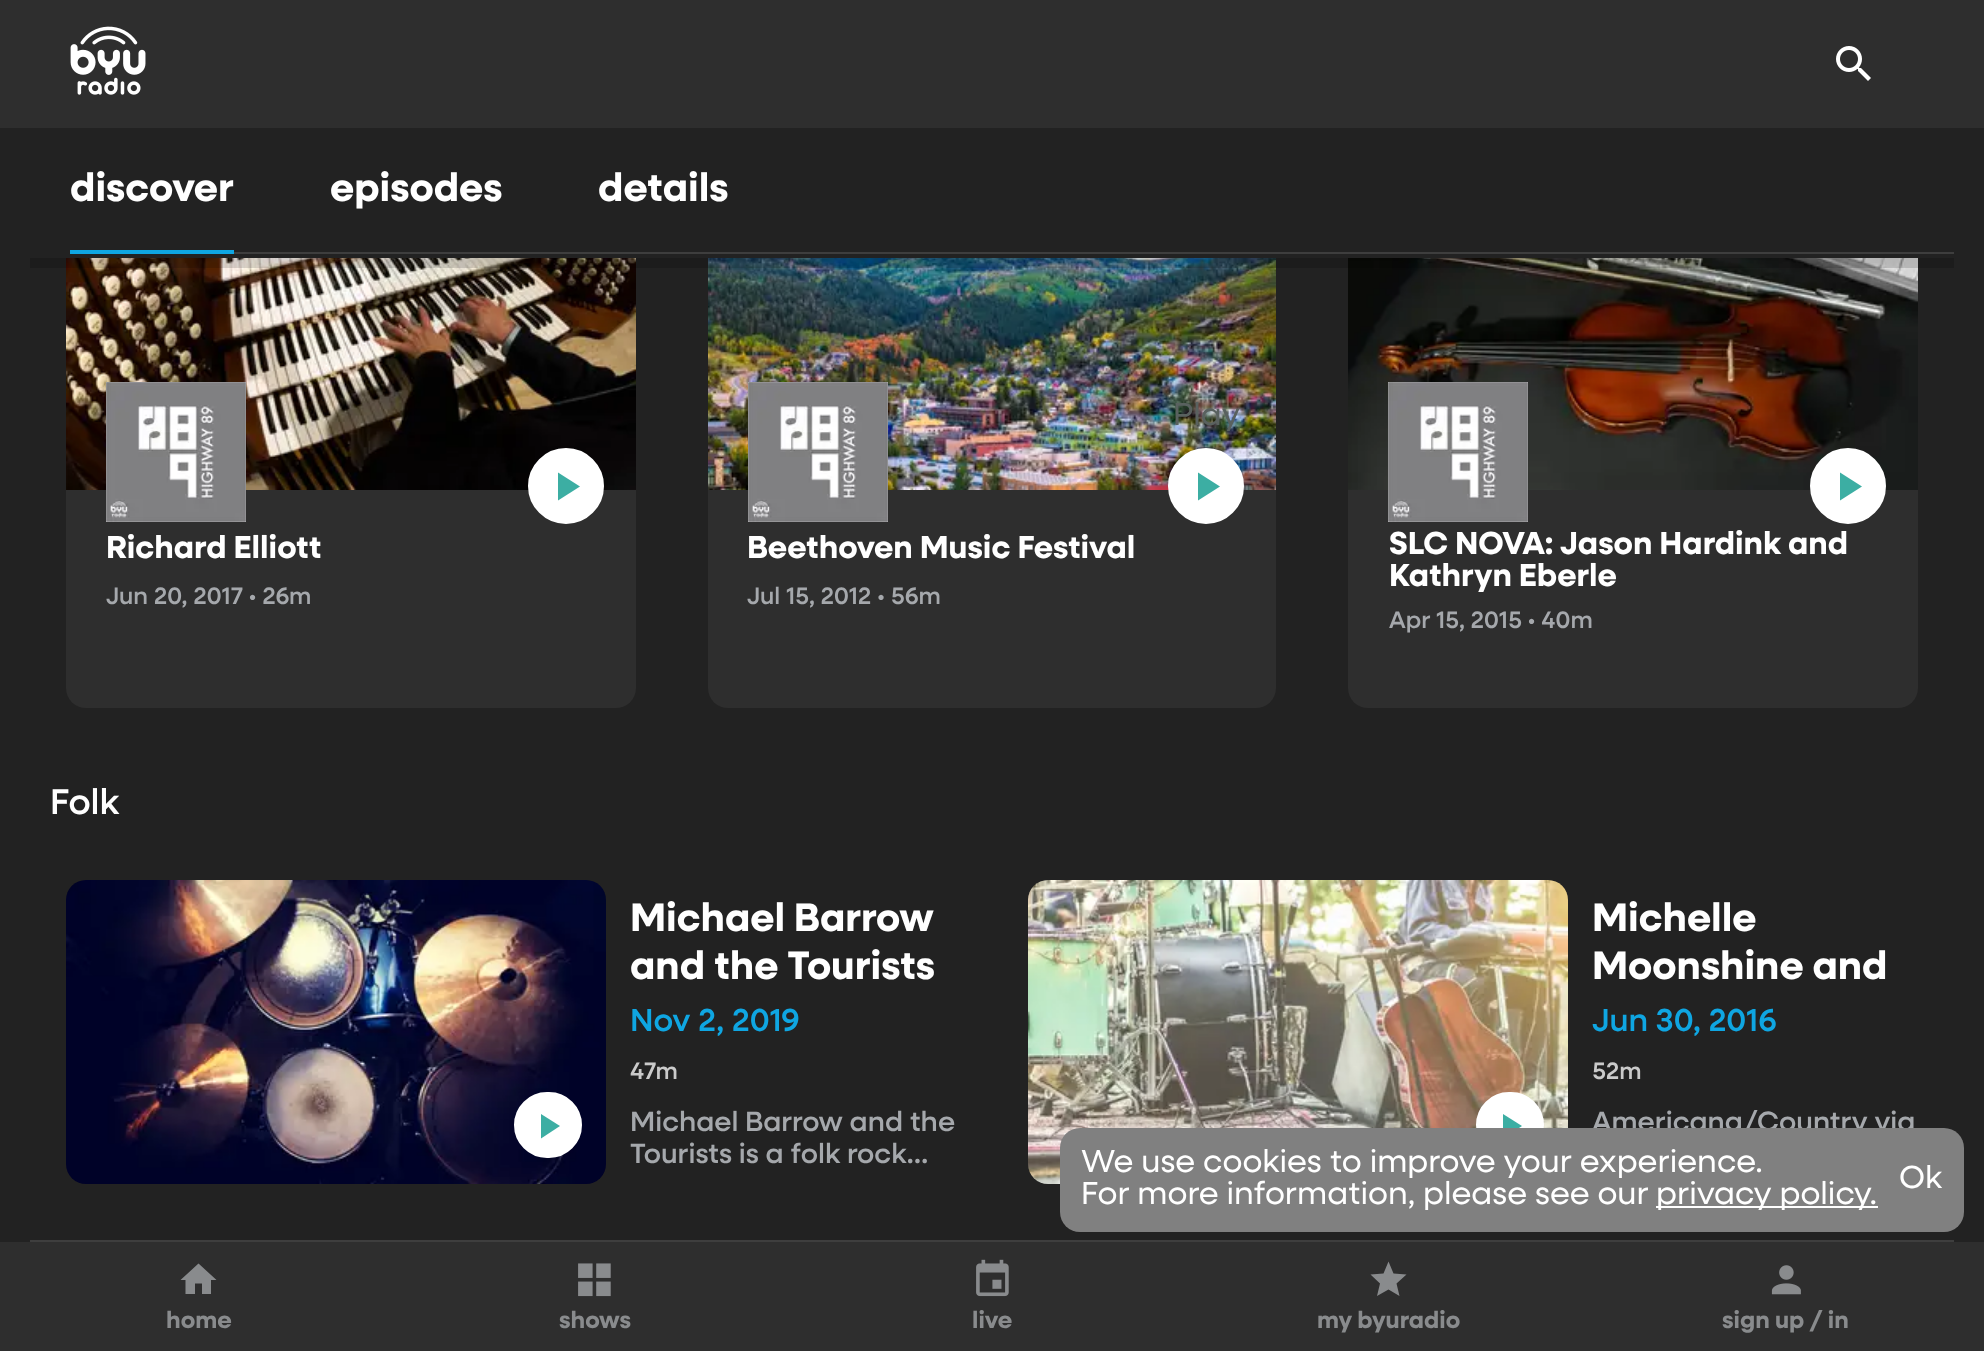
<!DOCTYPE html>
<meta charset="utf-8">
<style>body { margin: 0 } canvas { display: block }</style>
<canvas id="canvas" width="1984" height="1351"></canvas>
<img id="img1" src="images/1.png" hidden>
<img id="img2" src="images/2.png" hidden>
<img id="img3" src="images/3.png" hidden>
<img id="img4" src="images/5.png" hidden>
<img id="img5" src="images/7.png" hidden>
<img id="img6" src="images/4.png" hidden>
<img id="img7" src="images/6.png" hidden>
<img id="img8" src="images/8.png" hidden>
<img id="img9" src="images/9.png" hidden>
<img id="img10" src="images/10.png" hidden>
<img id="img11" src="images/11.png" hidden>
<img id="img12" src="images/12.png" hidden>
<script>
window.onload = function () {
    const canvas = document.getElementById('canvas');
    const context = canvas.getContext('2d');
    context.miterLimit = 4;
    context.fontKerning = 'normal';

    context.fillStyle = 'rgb(34, 34, 34)';
    context.fillRect(0, 0, 1984, 1351);
    context.fillStyle = 'rgb(46, 46, 46)';
    context.fillRect(0, 0, 1984, 128);
    context.drawImage(document.getElementById('img1'), 70, 26, 76, 69);
    context.drawImage(document.getElementById('img2'), 1836, 46, 35, 35);
    context.fillStyle = 'rgb(62, 62, 62)';
    context.fillRect(30, 1240, 1924, 2);
    context.fillStyle = 'rgb(46, 46, 46)';
    context.beginPath();
    context.roundRect(66, 488, 570, 220, [0, 0, 20, 20]);
    context.fill();
    context.drawImage(document.getElementById('img3'), 66, 258, 570, 232);
    context.beginPath();
    context.roundRect(708, 488, 568, 220, [0, 0, 20, 20]);
    context.fill();
    context.drawImage(document.getElementById('img4'), 708, 258, 568, 232);
    context.beginPath();
    context.roundRect(1348, 488, 570, 220, [0, 0, 20, 20]);
    context.fill();
    context.drawImage(document.getElementById('img5'), 1348, 258, 570, 232);
    context.fillStyle = 'rgba(0, 0, 0, 0.15)';
    context.fillRect(30, 258, 1924, 10);
    context.fillStyle = 'rgb(62, 62, 62)';
    context.fillRect(234, 252, 1720, 2);
    context.fillStyle = 'rgb(15, 166, 226)';
    context.fillRect(70, 250, 164, 4);
    context.drawImage(document.getElementById('img6'), 106, 382, 140, 140);
    context.fillStyle = 'rgb(255, 255, 255)';
    context.beginPath();
    context.arc(566, 486, 36, 0, 2 * Math.PI);
    context.fill();
    context.strokeStyle = 'rgb(255, 255, 255)';
    context.lineWidth = 4;
    context.stroke();
    context.fillStyle = 'rgb(60, 174, 163)';
    context.beginPath();
    context.moveTo(558, 472.5);
    context.lineTo(558, 500.5);
    context.lineTo(580, 486.5);
    context.closePath();
    context.fill();
    context.drawImage(document.getElementById('img7'), 748, 382, 140, 140);
    context.fillStyle = 'rgb(255, 255, 255)';
    context.beginPath();
    context.arc(1206, 486, 36, 0, 2 * Math.PI);
    context.fill();
    context.stroke();
    context.fillStyle = 'rgb(60, 174, 163)';
    context.beginPath();
    context.moveTo(1198, 472.5);
    context.lineTo(1198, 500.5);
    context.lineTo(1220, 486.5);
    context.closePath();
    context.fill();
    context.drawImage(document.getElementById('img6'), 1388, 382, 140, 140);
    context.fillStyle = 'rgb(255, 255, 255)';
    context.beginPath();
    context.arc(1848, 486, 36, 0, 2 * Math.PI);
    context.fill();
    context.stroke();
    context.fillStyle = 'rgb(60, 174, 163)';
    context.beginPath();
    context.moveTo(1840, 472.5);
    context.lineTo(1840, 500.5);
    context.lineTo(1862, 486.5);
    context.closePath();
    context.fill();
    context.drawImage(document.getElementById('img8'), 66, 880, 540, 304);
    context.fillStyle = 'rgb(255, 255, 255)';
    context.beginPath();
    context.roundRect(516, 1094, 64, 62, 31);
    context.fill();
    context.stroke();
    context.fillStyle = 'rgb(60, 174, 163)';
    context.beginPath();
    context.moveTo(541, 1114);
    context.lineTo(541, 1138.5);
    context.lineTo(560, 1126);
    context.closePath();
    context.fill();
    context.drawImage(document.getElementById('img9'), 1028, 880, 540, 304);
    context.fillStyle = 'rgb(255, 255, 255)';
    context.beginPath();
    context.roundRect(1478, 1094, 64, 62, 31);
    context.fill();
    context.stroke();
    context.fillStyle = 'rgb(60, 174, 163)';
    context.beginPath();
    context.moveTo(1503, 1114);
    context.lineTo(1503, 1138.5);
    context.lineTo(1522, 1126);
    context.closePath();
    context.fill();
    context.fillStyle = 'rgb(46, 46, 46)';
    context.fillRect(0, 1242, 1984, 109);
    context.fillStyle = 'rgb(137, 139, 141)';
    context.beginPath();
    context.moveTo(195, 1294);
    context.lineTo(195, 1283.5);
    context.lineTo(202, 1283.5);
    context.lineTo(202, 1294);
    context.lineTo(211, 1294);
    context.lineTo(211, 1280);
    context.lineTo(216.5, 1280);
    context.lineTo(198.5, 1263.5);
    context.lineTo(180.5, 1280);
    context.lineTo(185.5, 1280);
    context.lineTo(185.5, 1294);
    context.closePath();
    context.fill();
    context.drawImage(document.getElementById('img10'), 578, 1263, 33, 34);
    context.drawImage(document.getElementById('img11'), 976, 1259, 33, 38);
    context.beginPath();
    context.moveTo(1388.5, 1289.5);
    context.lineTo(1399.5, 1296);
    context.lineTo(1396.5, 1283.5);
    context.lineTo(1406.5, 1274.5);
    context.lineTo(1393.5, 1273.5);
    context.lineTo(1388.5, 1261.5);
    context.lineTo(1383.5, 1273.5);
    context.lineTo(1370.5, 1274.5);
    context.lineTo(1380, 1283.5);
    context.lineTo(1377, 1296);
    context.closePath();
    context.fill();
    context.drawImage(document.getElementById('img12'), 1771, 1265, 30, 30);
    context.font = 'bold 40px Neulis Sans';
    context.fillStyle = 'rgb(255, 255, 255)';
    context.fillText('discover', 70, 201);
    context.fillText('episodes', 330, 201);
    context.fillText('details', 598, 201);
    context.font = 'bold 32px Neulis Sans';
    context.fillText('Richard Elliott', 106, 558);
    context.font = '500 24px Neulis Sans';
    context.fillStyle = 'rgb(165, 168, 172)';
    context.fillText('Jun 20, 2017 • 26m', 106, 604);
    context.font = '32px Neulis Sans';
    context.fillStyle = 'rgb(89, 97, 95)';
    context.fillText('Play', 1173, 425);
    context.font = 'bold 32px Neulis Sans';
    context.fillStyle = 'rgb(255, 255, 255)';
    context.fillText('Beethoven Music Festival', 747, 558);
    context.font = '500 24px Neulis Sans';
    context.fillStyle = 'rgb(165, 168, 172)';
    context.fillText('Jul 15, 2012 • 56m', 747, 604);
    context.font = 'bold 32px Neulis Sans';
    context.fillStyle = 'rgb(255, 255, 255)';
    context.fillText('SLC NOVA: Jason Hardink and', 1389, 554);
    context.fillText('Kathryn Eberle', 1389, 586);
    context.font = '500 24px Neulis Sans';
    context.fillStyle = 'rgb(165, 168, 172)';
    context.fillText('Apr 15, 2015 • 40m', 1389, 628);
    context.font = '500 36px Neulis Sans';
    context.fillStyle = 'rgb(255, 255, 255)';
    context.fillText('Folk', 50, 814);
    context.font = 'bold 40px Neulis Sans';
    context.fillText('Michael Barrow', 630, 931);
    context.fillText('and the Tourists', 630, 979);
    context.font = '500 32px Neulis Sans';
    context.fillStyle = 'rgb(15, 166, 226)';
    context.fillText('Nov 2, 2019', 630, 1031);
    context.font = '500 24px Neulis Sans';
    context.fillStyle = 'rgb(202, 202, 202)';
    context.fillText('47m', 630, 1079);
    context.font = '500 28px Neulis Sans';
    context.fillStyle = 'rgb(165, 168, 172)';
    context.fillText('Michael Barrow and the', 630, 1131);
    context.fillText('Tourists is a folk rock…', 630, 1163);
    context.font = 'bold 40px Neulis Sans';
    context.fillStyle = 'rgb(255, 255, 255)';
    context.fillText('Michelle', 1592, 931);
    context.fillText('Moonshine and', 1592, 979);
    context.font = '500 32px Neulis Sans';
    context.fillStyle = 'rgb(15, 166, 226)';
    context.fillText('Jun 30, 2016', 1592, 1031);
    context.font = '500 24px Neulis Sans';
    context.fillStyle = 'rgb(202, 202, 202)';
    context.fillText('52m', 1592, 1079);
    context.font = '500 28px Neulis Sans';
    context.fillStyle = 'rgb(165, 168, 172)';
    context.fillText('Americana/Country via', 1592, 1131);
    context.font = 'bold 24px Neulis Sans';
    context.fillStyle = 'rgb(137, 139, 141)';
    context.fillText('home', 166, 1328);
    context.fillText('shows', 559, 1328);
    context.fillText('live', 972, 1328);
    context.fillText('my byuradio', 1317, 1328);
    context.fillText('sign up / in', 1722, 1328);
    context.fillStyle = 'rgb(128, 128, 128)';
    context.beginPath();
    context.roundRect(1060, 1128, 904, 104, 20);
    context.fill();
    context.font = '32px Neulis Sans';
    context.fillStyle = 'rgb(255, 255, 255)';
    context.fillText('We use cookies to improve your experience.', 1081, 1172);
    context.fillText('For more information, please see our', 1081, 1204);
    context.fillRect(1656, 1206, 222, 2);
    context.fillText('privacy policy.', 1656, 1204);
    context.fillText('Ok', 1899, 1188);
};
</script>
